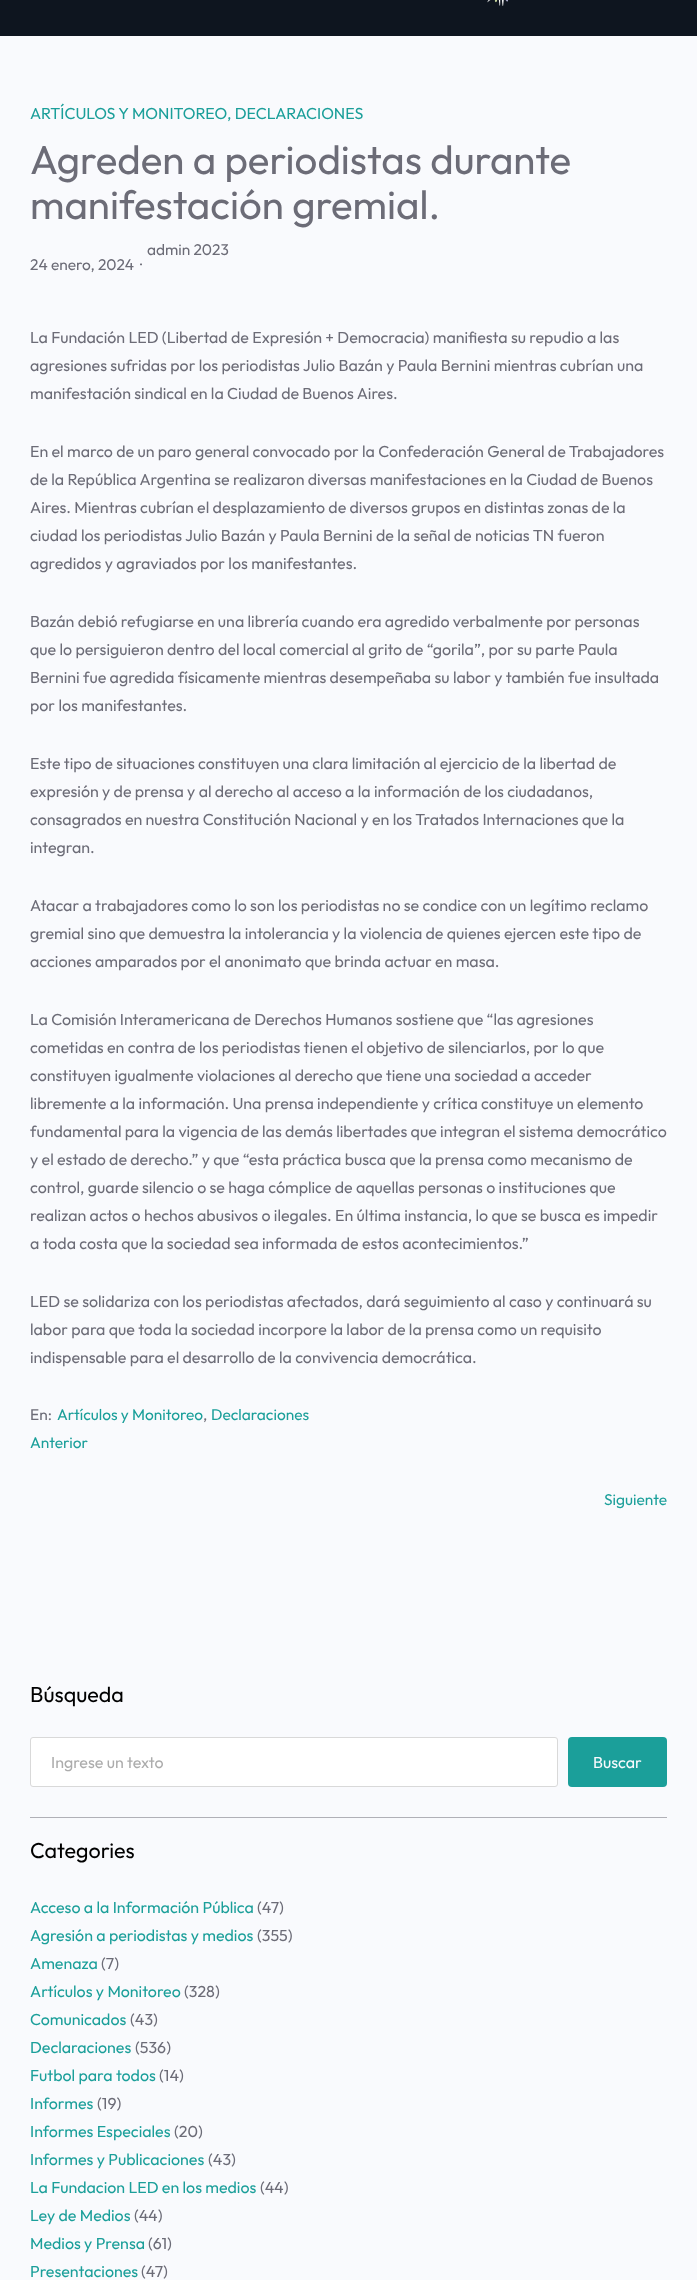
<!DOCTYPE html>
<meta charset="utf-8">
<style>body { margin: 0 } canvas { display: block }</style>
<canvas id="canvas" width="697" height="2280"></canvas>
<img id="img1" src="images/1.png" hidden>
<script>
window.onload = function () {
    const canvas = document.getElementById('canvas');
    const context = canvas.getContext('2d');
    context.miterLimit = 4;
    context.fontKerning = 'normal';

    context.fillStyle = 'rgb(249, 250, 253)';
    context.fillRect(0, 0, 697, 2280);
    context.fillStyle = 'rgb(14, 21, 31)';
    context.fillRect(0, 0, 697, 36);
    context.drawImage(document.getElementById('img1'), 487, 0, 21, 6);
    context.fillStyle = 'rgb(255, 255, 255)';
    context.beginPath();
    context.roundRect(30.5, 1737.5, 527, 49, 2.5);
    context.fill();
    context.strokeStyle = 'rgb(217, 217, 217)';
    context.stroke();
    context.fillStyle = 'rgb(27, 159, 154)';
    context.beginPath();
    context.roundRect(568, 1737, 99, 50, 4);
    context.fill();
    context.fillStyle = 'rgb(176, 176, 183)';
    context.fillRect(30, 1817, 637, 1);
    context.font = '16px Outfit';
    context.fillStyle = 'rgb(27, 159, 154)';
    context.fillText('ARTÍCULOS Y MONITOREO', 30, 119);
    context.fillText(', DECLARACIONES', 227, 119);
    context.font = '40.25px Outfit';
    context.fillStyle = 'rgb(108, 108, 119)';
    context.fillText('Agreden a periodistas durante', 30, 174);
    context.fillText('manifestación gremial.', 30, 219);
    context.font = '15.5px Outfit';
    context.fillText('admin 2023', 147, 255);
    context.fillText('24 enero, 2024', 30, 270);
    context.fillText('·', 140, 270);
    context.font = '16px Outfit';
    context.fillText('La Fundación LED (Libertad de Expresión + Democracia) manifiesta su repudio a las', 30, 343);
    context.fillText('agresiones sufridas por los periodistas Julio Bazán y Paula Bernini mientras cubrían una', 30, 371);
    context.fillText('manifestación sindical en la Ciudad de Buenos Aires.', 30, 399);
    context.fillText('En el marco de un paro general convocado por la Confederación General de Trabajadores', 30, 457);
    context.fillText('de la República Argentina se realizaron diversas manifestaciones en la Ciudad de Buenos', 30, 485);
    context.fillText('Aires. Mientras cubrían el desplazamiento de diversos grupos en distintas zonas de la', 30, 513);
    context.fillText('ciudad los periodistas Julio Bazán y Paula Bernini de la señal de noticias TN fueron', 30, 541);
    context.fillText('agredidos y agraviados por los manifestantes.', 30, 569);
    context.fillText('Bazán debió refugiarse en una librería cuando era agredido verbalmente por personas', 30, 627);
    context.fillText('que lo persiguieron dentro del local comercial al grito de “gorila”, por su parte Paula', 30, 655);
    context.fillText('Bernini fue agredida físicamente mientras desempeñaba su labor y también fue insultada', 30, 683);
    context.fillText('por los manifestantes.', 30, 711);
    context.fillText('Este tipo de situaciones constituyen una clara limitación al ejercicio de la libertad de', 30, 769);
    context.fillText('expresión y de prensa y al derecho al acceso a la información de los ciudadanos,', 30, 797);
    context.fillText('consagrados en nuestra Constitución Nacional y en los Tratados Internaciones que la', 30, 825);
    context.fillText('integran.', 30, 853);
    context.fillText('Atacar a trabajadores como lo son los periodistas no se condice con un legítimo reclamo', 30, 911);
    context.fillText('gremial sino que demuestra la intolerancia y la violencia de quienes ejercen este tipo de', 30, 939);
    context.fillText('acciones amparados por el anonimato que brinda actuar en masa.', 30, 967);
    context.fillText('La Comisión Interamericana de Derechos Humanos sostiene que “las agresiones', 30, 1025);
    context.fillText('cometidas en contra de los periodistas tienen el objetivo de silenciarlos, por lo que', 30, 1053);
    context.fillText('constituyen igualmente violaciones al derecho que tiene una sociedad a acceder', 30, 1081);
    context.fillText('libremente a la información. Una prensa independiente y crítica constituye un elemento', 30, 1109);
    context.fillText('fundamental para la vigencia de las demás libertades que integran el sistema democrático', 30, 1137);
    context.fillText('y el estado de derecho.” y que “esta práctica busca que la prensa como mecanismo de', 30, 1165);
    context.fillText('control, guarde silencio o se haga cómplice de aquellas personas o instituciones que', 30, 1193);
    context.fillText('realizan actos o hechos abusivos o ilegales. En última instancia, lo que se busca es impedir', 30, 1221);
    context.fillText('a toda costa que la sociedad sea informada de estos acontecimientos.”', 30, 1249);
    context.fillText('LED se solidariza con los periodistas afectados, dará seguimiento al caso y continuará su', 30, 1307);
    context.fillText('labor para que toda la sociedad incorpore la labor de la prensa como un requisito', 30, 1335);
    context.fillText('indispensable para el desarrollo de la convivencia democrática.', 30, 1363);
    context.font = '15.5px Outfit';
    context.fillText('En:', 30, 1420);
    context.fillStyle = 'rgb(27, 159, 154)';
    context.fillText('Artículos y Monitoreo', 57, 1420);
    context.fillStyle = 'rgb(108, 108, 119)';
    context.fillText(',', 203, 1420);
    context.fillStyle = 'rgb(27, 159, 154)';
    context.fillText('Declaraciones', 211, 1420);
    context.fillText('Anterior', 30, 1448);
    context.fillText('Siguiente', 604, 1505);
    context.font = '21.5px Outfit';
    context.fillStyle = 'rgb(0, 0, 0)';
    context.fillText('Búsqueda', 30, 1702);
    context.font = '16px Outfit';
    context.fillStyle = 'rgb(172, 172, 172)';
    context.fillText('Ingrese un texto', 51, 1768);
    context.fillStyle = 'rgb(249, 250, 253)';
    context.fillText('Buscar', 593, 1768);
    context.font = '21.5px Outfit';
    context.fillStyle = 'rgb(0, 0, 0)';
    context.fillText('Categories', 30, 1858);
    context.font = '16px Outfit';
    context.fillStyle = 'rgb(27, 159, 154)';
    context.fillText('Acceso a la Información Pública', 30, 1913);
    context.fillStyle = 'rgb(108, 108, 119)';
    context.fillText('(47)', 257, 1913);
    context.fillStyle = 'rgb(27, 159, 154)';
    context.fillText('Agresión a periodistas y medios', 30, 1941);
    context.fillStyle = 'rgb(108, 108, 119)';
    context.fillText('(355)', 257, 1941);
    context.fillStyle = 'rgb(27, 159, 154)';
    context.fillText('Amenaza', 30, 1969);
    context.fillStyle = 'rgb(108, 108, 119)';
    context.fillText('(7)', 101, 1969);
    context.fillStyle = 'rgb(27, 159, 154)';
    context.fillText('Artículos y Monitoreo', 30, 1997);
    context.fillStyle = 'rgb(108, 108, 119)';
    context.fillText('(328)', 184, 1997);
    context.fillStyle = 'rgb(27, 159, 154)';
    context.fillText('Comunicados', 30, 2025);
    context.fillStyle = 'rgb(108, 108, 119)';
    context.fillText('(43)', 130, 2025);
    context.fillStyle = 'rgb(27, 159, 154)';
    context.fillText('Declaraciones', 30, 2053);
    context.fillStyle = 'rgb(108, 108, 119)';
    context.fillText('(536)', 135, 2053);
    context.fillStyle = 'rgb(27, 159, 154)';
    context.fillText('Futbol para todos', 30, 2081);
    context.fillStyle = 'rgb(108, 108, 119)';
    context.fillText('(14)', 159, 2081);
    context.fillStyle = 'rgb(27, 159, 154)';
    context.fillText('Informes', 30, 2109);
    context.fillStyle = 'rgb(108, 108, 119)';
    context.fillText('(19)', 97, 2109);
    context.fillStyle = 'rgb(27, 159, 154)';
    context.fillText('Informes Especiales', 30, 2137);
    context.fillStyle = 'rgb(108, 108, 119)';
    context.fillText('(20)', 174, 2137);
    context.fillStyle = 'rgb(27, 159, 154)';
    context.fillText('Informes y Publicaciones', 30, 2165);
    context.fillStyle = 'rgb(108, 108, 119)';
    context.fillText('(43)', 208, 2165);
    context.fillStyle = 'rgb(27, 159, 154)';
    context.fillText('La Fundacion LED en los medios', 30, 2193);
    context.fillStyle = 'rgb(108, 108, 119)';
    context.fillText('(44)', 260, 2193);
    context.fillStyle = 'rgb(27, 159, 154)';
    context.fillText('Ley de Medios', 30, 2221);
    context.fillStyle = 'rgb(108, 108, 119)';
    context.fillText('(44)', 134, 2221);
    context.fillStyle = 'rgb(27, 159, 154)';
    context.fillText('Medios y Prensa', 30, 2249);
    context.fillStyle = 'rgb(108, 108, 119)';
    context.fillText('(61)', 148, 2249);
    context.fillStyle = 'rgb(27, 159, 154)';
    context.fillText('Presentaciones', 30, 2277);
    context.fillStyle = 'rgb(108, 108, 119)';
    context.fillText('(47)', 141, 2277);
};
</script>
